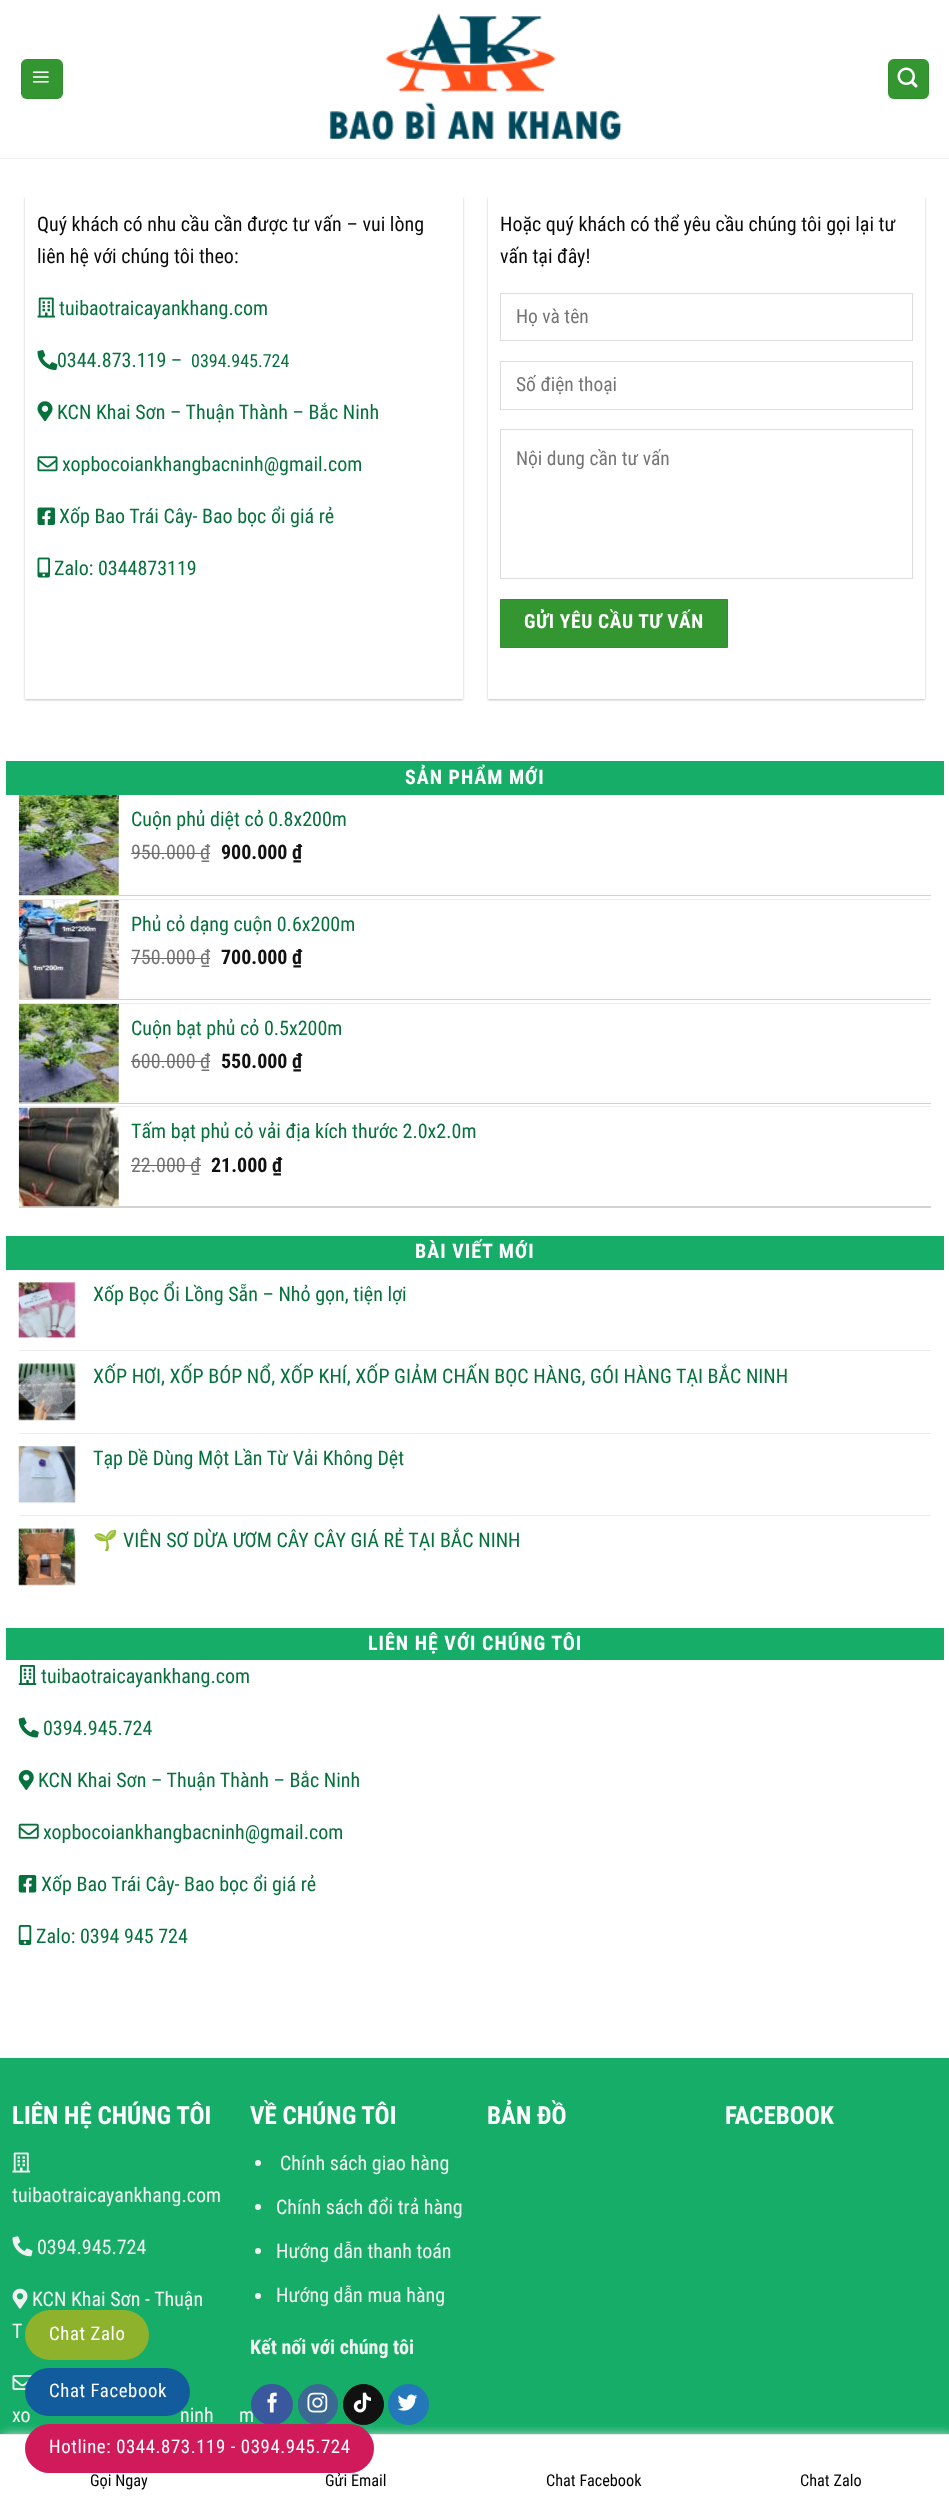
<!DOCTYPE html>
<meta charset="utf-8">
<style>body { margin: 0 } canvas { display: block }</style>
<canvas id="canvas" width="949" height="2504"></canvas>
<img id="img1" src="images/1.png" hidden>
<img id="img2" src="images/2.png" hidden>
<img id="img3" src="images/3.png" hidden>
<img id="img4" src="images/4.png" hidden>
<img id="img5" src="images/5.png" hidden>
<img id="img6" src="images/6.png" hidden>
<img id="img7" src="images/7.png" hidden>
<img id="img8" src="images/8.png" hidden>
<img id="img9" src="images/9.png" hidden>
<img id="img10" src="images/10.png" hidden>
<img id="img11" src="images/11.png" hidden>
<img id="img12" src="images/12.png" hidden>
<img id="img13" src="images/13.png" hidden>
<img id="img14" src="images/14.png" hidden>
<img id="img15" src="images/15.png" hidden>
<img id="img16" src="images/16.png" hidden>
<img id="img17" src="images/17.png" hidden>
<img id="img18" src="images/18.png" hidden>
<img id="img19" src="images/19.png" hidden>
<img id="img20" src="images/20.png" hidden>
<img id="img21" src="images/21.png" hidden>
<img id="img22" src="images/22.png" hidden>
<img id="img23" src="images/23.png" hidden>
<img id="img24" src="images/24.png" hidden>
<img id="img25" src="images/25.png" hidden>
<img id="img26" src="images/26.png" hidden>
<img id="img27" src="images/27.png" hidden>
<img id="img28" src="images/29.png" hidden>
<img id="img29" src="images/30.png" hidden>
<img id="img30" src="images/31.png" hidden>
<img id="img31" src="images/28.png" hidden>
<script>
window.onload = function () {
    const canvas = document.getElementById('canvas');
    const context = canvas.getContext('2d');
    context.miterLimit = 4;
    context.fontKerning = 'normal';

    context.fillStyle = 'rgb(255, 255, 255)';
    context.fillRect(0, 0, 949, 2504);
    context.fillStyle = 'rgb(241, 241, 241)';
    context.fillRect(0, 158, 949, 1);
    context.fillStyle = 'rgb(52, 150, 49)';
    context.beginPath();
    context.roundRect(21, 59, 42, 40, 6);
    context.fill();
    context.strokeStyle = 'rgba(0, 0, 0, 0.05)';
    context.strokeRect(21.5, 59.5, 41, 39);
    context.drawImage(document.getElementById('img1'), 32, 71, 17, 12);
    context.drawImage(document.getElementById('img2'), 329, 13, 293, 128);
    context.beginPath();
    context.roundRect(888, 59, 41, 40, 6);
    context.fill();
    context.strokeRect(888.5, 59.5, 40, 39);
    context.drawImage(document.getElementById('img3'), 897, 67, 21, 21);
    context.save();
    context.beginPath();
    context.moveTo(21, 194);
    context.lineTo(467, 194);
    context.lineTo(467, 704);
    context.lineTo(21, 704);
    context.closePath();
    context.moveTo(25, 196);
    context.lineTo(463, 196);
    context.lineTo(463, 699);
    context.lineTo(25, 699);
    context.closePath();
    context.clip('evenodd');
    context.fillStyle = 'rgba(0, 0, 0, 0.24)';
    context.filter = 'blur(1px)';
    context.beginPath();
    context.rect(25, 198, 438, 502);
    context.fill();
    context.filter = 'none';
    context.restore();
    context.drawImage(document.getElementById('img4'), 37, 297, 18, 21);
    context.drawImage(document.getElementById('img5'), 37, 350, 21, 20);
    context.drawImage(document.getElementById('img6'), 37, 401, 16, 21);
    context.drawImage(document.getElementById('img7'), 37, 456, 21, 16);
    context.drawImage(document.getElementById('img8'), 37, 507, 18, 18);
    context.drawImage(document.getElementById('img9'), 37, 557, 13, 21);
    context.save();
    context.beginPath();
    context.moveTo(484, 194);
    context.lineTo(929, 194);
    context.lineTo(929, 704);
    context.lineTo(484, 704);
    context.closePath();
    context.moveTo(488, 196);
    context.lineTo(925, 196);
    context.lineTo(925, 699);
    context.lineTo(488, 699);
    context.closePath();
    context.clip('evenodd');
    context.fillStyle = 'rgba(0, 0, 0, 0.24)';
    context.filter = 'blur(1px)';
    context.beginPath();
    context.rect(488, 198, 437, 502);
    context.fill();
    context.filter = 'none';
    context.restore();
    context.strokeStyle = 'rgb(221, 221, 221)';
    context.strokeRect(500.5, 293.5, 412, 47);
    context.strokeRect(500.5, 361.5, 412, 48);
    context.strokeRect(500.5, 429.5, 412, 149);
    context.beginPath();
    context.rect(500.5, 599.5, 227, 48);
    context.fill();
    context.strokeStyle = 'rgb(49, 143, 47)';
    context.stroke();
    context.fillStyle = 'rgb(21, 173, 104)';
    context.fillRect(6, 761, 938, 34);
    context.save();
    context.beginPath();
    context.moveTo(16, 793);
    context.lineTo(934, 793);
    context.lineTo(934, 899);
    context.lineTo(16, 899);
    context.closePath();
    context.moveTo(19, 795);
    context.lineTo(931, 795);
    context.lineTo(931, 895);
    context.lineTo(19, 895);
    context.closePath();
    context.clip('evenodd');
    context.fillStyle = 'rgb(210, 210, 210)';
    context.filter = 'blur(0.5px)';
    context.beginPath();
    context.rect(19, 796, 912, 100);
    context.fill();
    context.filter = 'none';
    context.restore();
    context.drawImage(document.getElementById('img10'), 18, 795, 101, 100);
    context.fillStyle = 'rgb(210, 210, 210)';
    context.filter = 'blur(0.5px)';
    context.beginPath();
    context.rect(19, 900, 912, 100);
    context.fill();
    context.filter = 'none';
    context.fillStyle = 'rgb(255, 255, 255)';
    context.fillRect(19, 900, 912, 99);
    context.fillStyle = 'rgb(236, 236, 236)';
    context.fillRect(19, 899, 912, 1);
    context.drawImage(document.getElementById('img11'), 18, 900, 101, 99);
    context.fillStyle = 'rgb(210, 210, 210)';
    context.filter = 'blur(0.5px)';
    context.beginPath();
    context.rect(19, 1004, 912, 100);
    context.fill();
    context.filter = 'none';
    context.fillStyle = 'rgb(255, 255, 255)';
    context.fillRect(19, 1004, 912, 99);
    context.fillStyle = 'rgb(236, 236, 236)';
    context.fillRect(19, 1003, 912, 1);
    context.drawImage(document.getElementById('img12'), 18, 1003, 101, 100);
    context.save();
    context.beginPath();
    context.moveTo(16, 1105);
    context.lineTo(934, 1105);
    context.lineTo(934, 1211);
    context.lineTo(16, 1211);
    context.closePath();
    context.moveTo(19, 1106);
    context.lineTo(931, 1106);
    context.lineTo(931, 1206);
    context.lineTo(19, 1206);
    context.closePath();
    context.clip('evenodd');
    context.fillStyle = 'rgb(210, 210, 210)';
    context.filter = 'blur(0.5px)';
    context.beginPath();
    context.rect(19, 1108, 912, 100);
    context.fill();
    context.filter = 'none';
    context.restore();
    context.fillRect(19, 1106, 912, 1);
    context.drawImage(document.getElementById('img13'), 18, 1107, 101, 100);
    context.fillStyle = 'rgb(21, 173, 104)';
    context.fillRect(6, 1236, 938, 34);
    context.drawImage(document.getElementById('img14'), 18, 1282, 58, 57);
    context.fillStyle = 'rgb(236, 236, 236)';
    context.fillRect(19, 1350, 912, 1);
    context.drawImage(document.getElementById('img15'), 18, 1363, 58, 58);
    context.fillRect(19, 1433, 912, 1);
    context.drawImage(document.getElementById('img16'), 18, 1446, 58, 58);
    context.fillRect(19, 1515, 912, 1);
    context.drawImage(document.getElementById('img17'), 18, 1528, 58, 58);
    context.fillStyle = 'rgb(21, 173, 104)';
    context.fillRect(6, 1628, 938, 32);
    context.drawImage(document.getElementById('img18'), 18, 1665, 19, 20);
    context.drawImage(document.getElementById('img19'), 18, 1717, 21, 21);
    context.drawImage(document.getElementById('img20'), 18, 1770, 16, 20);
    context.drawImage(document.getElementById('img21'), 18, 1823, 21, 16);
    context.drawImage(document.getElementById('img22'), 18, 1875, 19, 18);
    context.drawImage(document.getElementById('img23'), 18, 1925, 14, 20);
    context.fillRect(0, 2058, 949, 376);
    context.drawImage(document.getElementById('img24'), 12, 2152, 18, 21);
    context.drawImage(document.getElementById('img25'), 12, 2236, 21, 21);
    context.drawImage(document.getElementById('img26'), 12, 2288, 16, 21);
    context.drawImage(document.getElementById('img27'), 12, 2375, 20, 15);
    context.fillStyle = 'rgb(241, 241, 241)';
    context.beginPath();
    context.arc(258, 2163, 3, 0, 2 * Math.PI);
    context.fill();
    context.beginPath();
    context.arc(258, 2207, 3, 0, 2 * Math.PI);
    context.fill();
    context.beginPath();
    context.arc(258, 2251, 3, 0, 2 * Math.PI);
    context.fill();
    context.beginPath();
    context.arc(258, 2296, 3, 0, 2 * Math.PI);
    context.fill();
    context.fillStyle = 'rgb(59, 105, 148)';
    context.beginPath();
    context.roundRect(298.5, 2384.5, 39, 40, 19.5);
    context.fill();
    context.strokeStyle = 'rgb(59, 105, 148)';
    context.stroke();
    context.drawImage(document.getElementById('img28'), 307, 2392, 21, 21);
    context.fillStyle = 'rgb(17, 17, 17)';
    context.beginPath();
    context.arc(363.5, 2404.5, 20, 0, 2 * Math.PI);
    context.fill();
    context.strokeStyle = 'rgb(17, 17, 17)';
    context.stroke();
    context.drawImage(document.getElementById('img29'), 353, 2392, 18, 21);
    context.fillStyle = 'rgb(36, 120, 186)';
    context.beginPath();
    context.arc(408.5, 2404.5, 20, 0, 2 * Math.PI);
    context.fill();
    context.strokeStyle = 'rgb(36, 120, 186)';
    context.stroke();
    context.drawImage(document.getElementById('img30'), 397, 2394, 21, 17);
    context.fillStyle = 'rgb(142, 178, 43)';
    context.beginPath();
    context.roundRect(25, 2310, 124, 50, 25);
    context.fill();
    context.font = '20px Roboto Condensed';
    context.fillStyle = 'rgb(10, 10, 10)';
    context.fillText('Quý khách có nhu cầu cần được tư vấn – vui lòng', 37, 231);
    context.fillText('liên hệ với chúng tôi theo:', 37, 263);
    context.fillStyle = 'rgb(7, 113, 61)';
    context.fillText('tuibaotraicayankhang.com', 59, 315);
    context.fillText('0344.873.119 –', 57, 367);
    context.font = '18px Roboto Condensed';
    context.fillText('0394.945.724', 191, 367);
    context.font = '20px Roboto Condensed';
    context.fillText('KCN Khai Sơn – Thuận Thành – Bắc Ninh', 57, 419);
    context.fillText('xopbocoiankhangbacninh@gmail.com', 62, 471);
    context.fillText('Xốp Bao Trái Cây- Bao bọc ổi giá rẻ', 59, 523);
    context.fillText('Zalo: 0344873119', 54, 575);
    context.fillStyle = 'rgb(10, 10, 10)';
    context.fillText('Hoặc quý khách có thể yêu cầu chúng tôi gọi lại tư', 500, 231);
    context.fillText('vấn tại đây!', 500, 263);
    context.font = '19.5px Roboto Condensed';
    context.fillStyle = 'rgb(117, 117, 117)';
    context.fillText('Họ và tên', 516, 323);
    context.fillText('Số điện thoại', 516, 391);
    context.fillText('Nội dung cần tư vấn', 516, 465);
    context.letterSpacing = '0.6px';
    context.font = 'bold 19.5px Roboto Condensed';
    context.fillStyle = 'rgb(255, 255, 255)';
    context.fillText('GỬI YÊU CẦU TƯ VẤN', 524, 628);
    context.letterSpacing = '1px';
    context.font = 'bold 20px Roboto Condensed';
    context.fillText('SẢN PHẨM MỚI', 405, 784);
    context.letterSpacing = '0px';
    context.font = '20px Roboto Condensed';
    context.fillStyle = 'rgb(7, 113, 61)';
    context.fillText('Cuộn phủ diệt cỏ 0.8x200m', 131, 826);
    context.fillStyle = 'rgb(117, 117, 117)';
    context.fillText('950.000 ₫', 131, 859);
    context.fillStyle = 'rgb(108, 108, 108)';
    context.fillRect(131, 853, 79, 1);
    context.font = 'bold 20px Roboto Condensed';
    context.fillStyle = 'rgb(17, 17, 17)';
    context.fillText('900.000 ₫', 221, 859);
    context.font = '20px Roboto Condensed';
    context.fillStyle = 'rgb(7, 113, 61)';
    context.fillText('Phủ cỏ dạng cuộn 0.6x200m', 131, 931);
    context.fillStyle = 'rgb(117, 117, 117)';
    context.fillText('750.000 ₫', 131, 964);
    context.fillStyle = 'rgb(108, 108, 108)';
    context.fillRect(131, 958, 79, 1);
    context.font = 'bold 20px Roboto Condensed';
    context.fillStyle = 'rgb(17, 17, 17)';
    context.fillText('700.000 ₫', 221, 964);
    context.font = '20px Roboto Condensed';
    context.fillStyle = 'rgb(7, 113, 61)';
    context.fillText('Cuộn bạt phủ cỏ 0.5x200m', 131, 1035);
    context.fillStyle = 'rgb(117, 117, 117)';
    context.fillText('600.000 ₫', 131, 1068);
    context.fillStyle = 'rgb(108, 108, 108)';
    context.fillRect(131, 1061, 79, 1);
    context.font = 'bold 20px Roboto Condensed';
    context.fillStyle = 'rgb(17, 17, 17)';
    context.fillText('550.000 ₫', 221, 1068);
    context.font = '20px Roboto Condensed';
    context.fillStyle = 'rgb(7, 113, 61)';
    context.fillText('Tấm bạt phủ cỏ vải địa kích thước 2.0x2.0m', 131, 1138);
    context.fillStyle = 'rgb(117, 117, 117)';
    context.fillText('22.000 ₫', 131, 1172);
    context.fillStyle = 'rgb(108, 108, 108)';
    context.fillRect(131, 1165, 70, 1);
    context.font = 'bold 20px Roboto Condensed';
    context.fillStyle = 'rgb(17, 17, 17)';
    context.fillText('21.000 ₫', 211, 1172);
    context.letterSpacing = '1px';
    context.fillStyle = 'rgb(255, 255, 255)';
    context.fillText('BÀI VIẾT MỚI', 415, 1258);
    context.letterSpacing = '0px';
    context.font = '20px Roboto Condensed';
    context.fillStyle = 'rgb(7, 113, 61)';
    context.fillText('Xốp Bọc Ổi Lồng Sẵn – Nhỏ gọn, tiện lợi', 93, 1301);
    context.fillText('XỐP HƠI, XỐP BÓP NỔ, XỐP KHÍ, XỐP GIẢM CHẤN BỌC HÀNG, GÓI HÀNG TẠI BẮC NINH', 93, 1383);
    context.fillText('Tạp Dề Dùng Một Lần Từ Vải Không Dệt', 93, 1465);
    context.font = '20px Noto Color Emoji';
    context.fillText('🌱', 93, 1547);
    context.font = '20px Roboto Condensed';
    context.fillText('VIÊN SƠ DỪA ƯƠM CÂY CÂY GIÁ RẺ TẠI BẮC NINH', 123, 1547);
    context.letterSpacing = '1px';
    context.font = 'bold 20px Roboto Condensed';
    context.fillStyle = 'rgb(255, 255, 255)';
    context.fillText('LIÊN HỆ VỚI CHÚNG TÔI', 368, 1650);
    context.letterSpacing = '0px';
    context.font = '20px Roboto Condensed';
    context.fillStyle = 'rgb(7, 113, 61)';
    context.fillText('tuibaotraicayankhang.com', 41, 1683);
    context.fillText('0394.945.724', 43, 1735);
    context.fillText('KCN Khai Sơn – Thuận Thành – Bắc Ninh', 38, 1787);
    context.fillText('xopbocoiankhangbacninh@gmail.com', 43, 1839);
    context.fillText('Xốp Bao Trái Cây- Bao bọc ổi giá rẻ', 41, 1891);
    context.fillText('Zalo: 0394 945 724', 36, 1943);
    context.font = 'bold 25px Roboto Condensed';
    context.fillStyle = 'rgb(255, 255, 255)';
    context.fillText('LIÊN HỆ CHÚNG TÔI', 12, 2124);
    context.font = '20px Roboto Condensed';
    context.fillStyle = 'rgb(241, 241, 241)';
    context.fillText('tuibaotraicayankhang.com', 12, 2202);
    context.fillText('0394.945.724', 37, 2254);
    context.fillText('KCN Khai Sơn - Thuận', 32, 2306);
    context.fillText('T', 12, 2338);
    context.fillText('xo', 12, 2422);
    context.fillText('ninh', 180, 2422);
    context.fillText('m', 239, 2422);
    context.font = 'bold 25px Roboto Condensed';
    context.fillStyle = 'rgb(255, 255, 255)';
    context.fillText('VỀ CHÚNG TÔI', 250, 2124);
    context.font = '20px Roboto Condensed';
    context.fillStyle = 'rgb(241, 241, 241)';
    context.fillText('Chính sách giao hàng', 280, 2170);
    context.fillText('Chính sách đổi trả hàng', 276, 2214);
    context.fillText('Hướng dẫn thanh toán', 276, 2258);
    context.fillText('Hướng dẫn mua hàng', 276, 2302);
    context.font = 'bold 20px Roboto Condensed';
    context.fillText('Kết nối với chúng tôi', 250, 2354);
    context.fillStyle = 'rgb(58, 88, 157)';
    context.beginPath();
    context.roundRect(251.5, 2384.5, 41, 40, 20);
    context.fill();
    context.strokeStyle = 'rgb(58, 88, 157)';
    context.stroke();
    context.drawImage(document.getElementById('img31'), 267, 2392, 10, 21);
    context.font = 'bold 25px Roboto Condensed';
    context.fillStyle = 'rgb(255, 255, 255)';
    context.fillText('BẢN ĐỒ', 487, 2124);
    context.fillText('FACEBOOK', 725, 2124);
    context.letterSpacing = '0.6px';
    context.font = '18.75px Roboto Condensed';
    context.fillText('Chat Zalo', 49, 2340);
    context.fillStyle = 'rgb(18, 92, 158)';
    context.beginPath();
    context.roundRect(25, 2368, 165, 48, 24);
    context.fill();
    context.fillStyle = 'rgb(255, 255, 255)';
    context.fillText('Chat Facebook', 49, 2397);
    context.fillStyle = 'rgb(222, 222, 222)';
    context.filter = 'blur(5.5px)';
    context.beginPath();
    context.rect(3, 2435, 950, 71);
    context.fill();
    context.filter = 'none';
    context.fillStyle = 'rgb(255, 255, 255)';
    context.fillRect(0, 2435, 949, 69);
    context.fillStyle = 'rgb(234, 234, 234)';
    context.fillRect(0, 2434, 949, 1);
    context.letterSpacing = '0px';
    context.font = '16.25px Roboto Condensed';
    context.fillStyle = 'rgb(0, 0, 0)';
    context.fillText('Gọi Ngay', 90, 2486);
    context.fillText('Gửi Email', 325, 2486);
    context.fillStyle = 'rgb(209, 26, 89)';
    context.beginPath();
    context.roundRect(25, 2424, 349, 49, 24.5);
    context.fill();
    context.letterSpacing = '0.6px';
    context.font = '18.75px Roboto Condensed';
    context.fillStyle = 'rgb(255, 255, 255)';
    context.fillText('Hotline: 0344.873.119 - 0394.945.724', 49, 2453);
    context.letterSpacing = '0px';
    context.font = '16.25px Roboto Condensed';
    context.fillStyle = 'rgb(0, 0, 0)';
    context.fillText('Chat Facebook', 546, 2486);
    context.fillText('Chat Zalo', 800, 2486);
};
</script>
